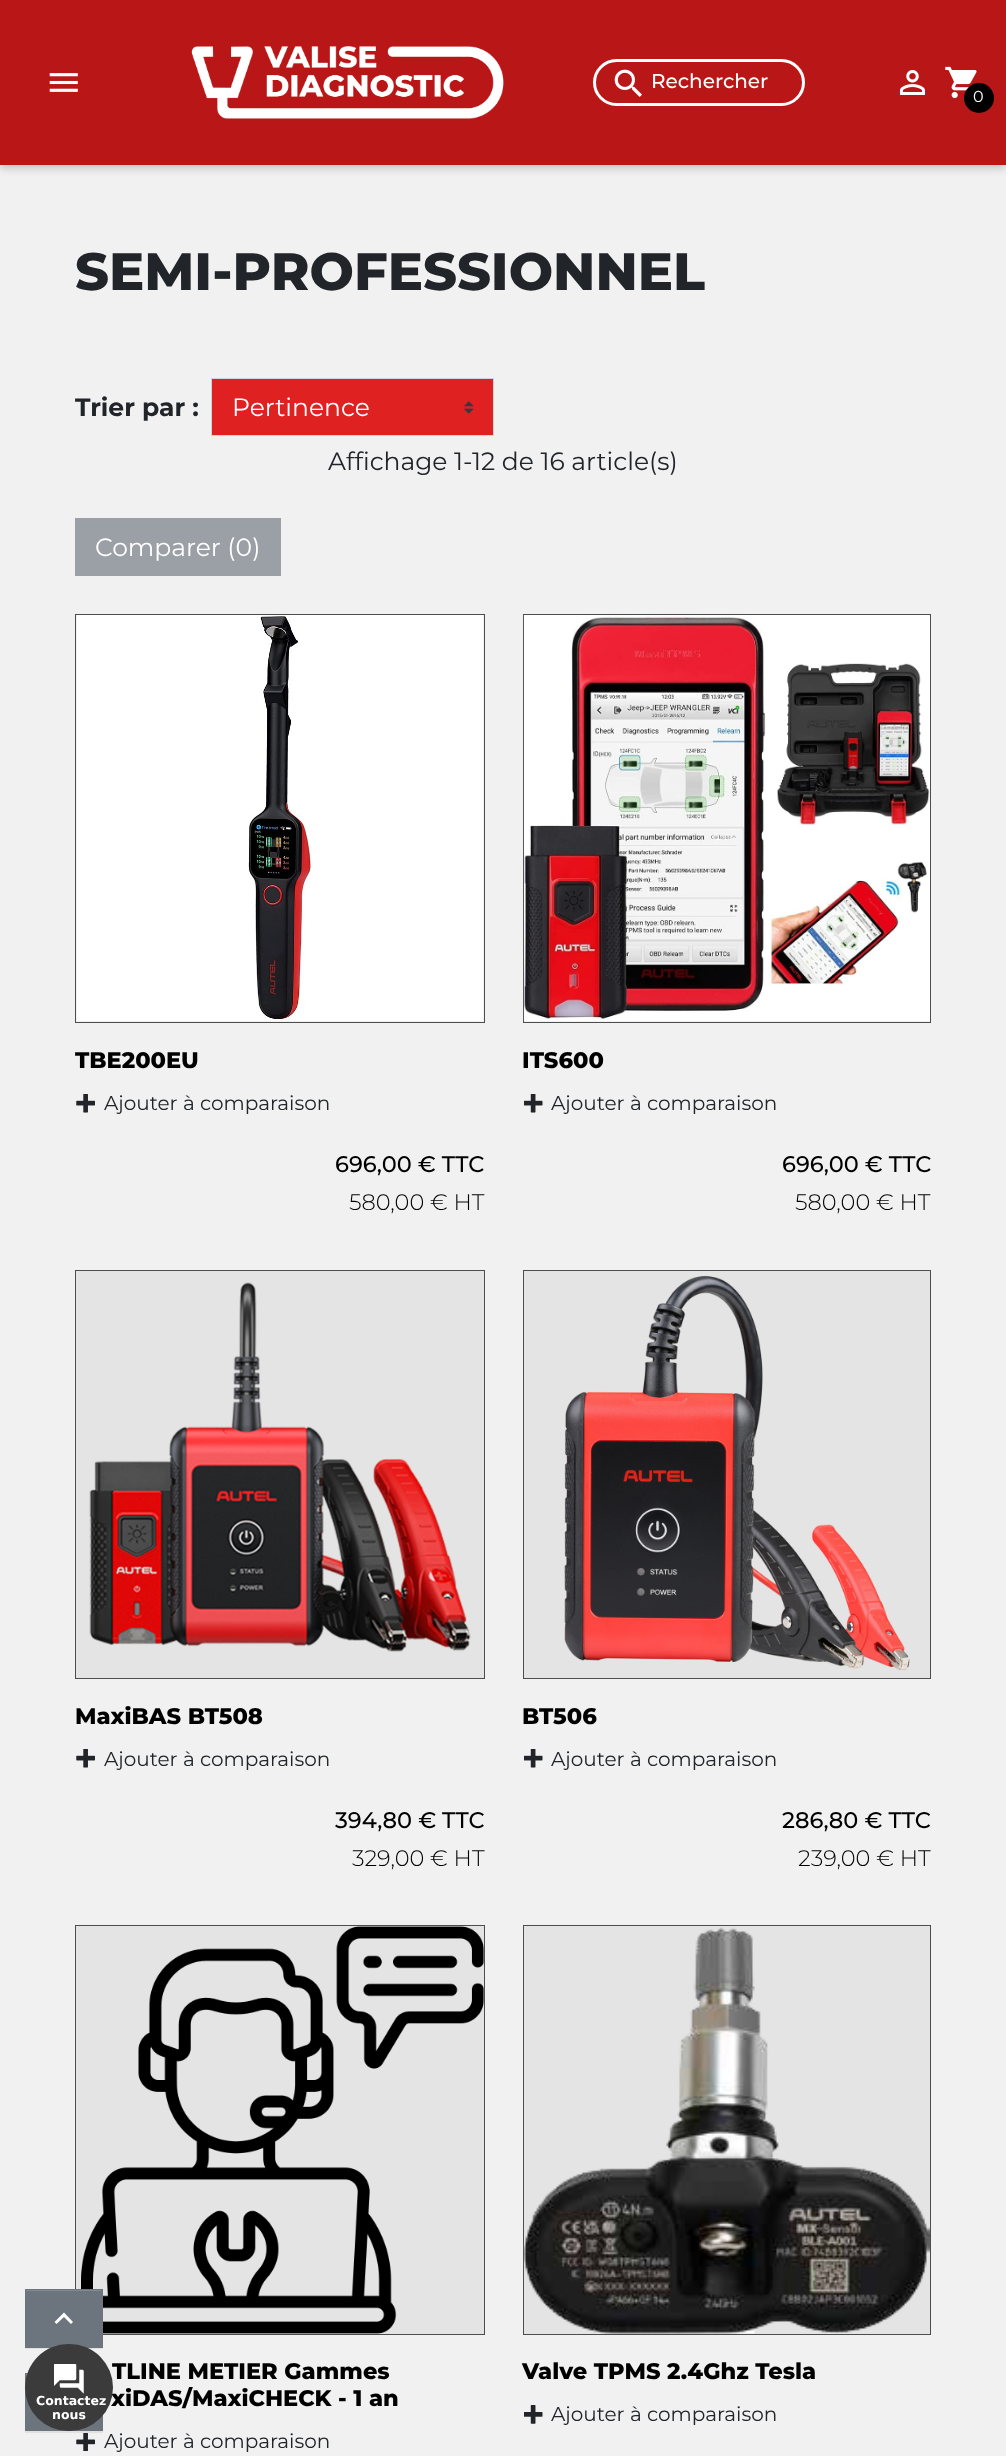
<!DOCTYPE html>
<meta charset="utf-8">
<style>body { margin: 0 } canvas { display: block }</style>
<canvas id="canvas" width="1006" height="2456"></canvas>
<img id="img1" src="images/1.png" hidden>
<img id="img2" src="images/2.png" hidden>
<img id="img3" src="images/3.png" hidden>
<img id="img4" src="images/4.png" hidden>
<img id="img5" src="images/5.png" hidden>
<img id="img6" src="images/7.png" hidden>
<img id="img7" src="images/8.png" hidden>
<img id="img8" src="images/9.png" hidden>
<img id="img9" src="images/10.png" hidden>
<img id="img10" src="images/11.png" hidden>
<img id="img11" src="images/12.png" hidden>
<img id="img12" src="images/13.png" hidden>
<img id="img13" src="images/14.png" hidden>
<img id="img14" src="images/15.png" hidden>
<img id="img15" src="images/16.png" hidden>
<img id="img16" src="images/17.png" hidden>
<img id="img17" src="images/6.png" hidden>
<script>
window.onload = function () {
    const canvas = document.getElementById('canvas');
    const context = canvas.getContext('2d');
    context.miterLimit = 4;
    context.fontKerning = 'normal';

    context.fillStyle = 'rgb(241, 241, 241)';
    context.fillRect(0, 0, 1006, 2456);
    context.fillStyle = 'rgba(0, 0, 0, 0.2)';
    context.filter = 'blur(4px)';
    context.beginPath();
    context.rect(0, 3, 1006, 165);
    context.fill();
    context.filter = 'none';
    context.fillStyle = 'rgb(185, 23, 23)';
    context.fillRect(0, 0, 1006, 165);
    context.drawImage(document.getElementById('img1'), 49, 73, 29, 19);
    context.drawImage(document.getElementById('img2'), 191, 46, 313, 73);
    context.beginPath();
    context.roundRect(594.5, 60.5, 209, 44, 22);
    context.strokeStyle = 'rgb(255, 255, 255)';
    context.lineWidth = 3;
    context.stroke();
    context.drawImage(document.getElementById('img3'), 614, 69, 28, 28);
    context.drawImage(document.getElementById('img4'), 899, 70, 27, 25);
    context.drawImage(document.getElementById('img5'), 945, 66, 32, 33);
    context.fillStyle = 'rgb(0, 0, 0)';
    context.beginPath();
    context.arc(979, 98, 15, 0, 2 * Math.PI);
    context.fill();
    context.fillStyle = 'rgb(223, 33, 33)';
    context.fillRect(212, 379, 281, 56);
    context.drawImage(document.getElementById('img6'), 464, 401, 10, 13);
    context.strokeStyle = 'rgb(206, 212, 218)';
    context.lineWidth = 1;
    context.strokeRect(211.5, 378.5, 282, 57);
    context.fillStyle = 'rgb(155, 160, 166)';
    context.fillRect(75, 518, 206, 58);
    context.strokeStyle = 'rgb(77, 77, 77)';
    context.strokeRect(75.5, 614.5, 409, 408);
    context.fillStyle = 'rgb(228, 228, 228)';
    context.fillRect(76, 615, 408, 406);
    context.drawImage(document.getElementById('img7'), 76, 615, 408, 406);
    context.drawImage(document.getElementById('img8'), 76, 1094, 19, 19);
    context.strokeRect(523.5, 614.5, 407, 408);
    context.drawImage(document.getElementById('img9'), 523, 615, 407, 406);
    context.drawImage(document.getElementById('img10'), 524, 1094, 19, 19);
    context.strokeRect(75.5, 1270.5, 409, 408);
    context.fillRect(76, 1271, 408, 407);
    context.drawImage(document.getElementById('img11'), 89, 1282, 382, 370);
    context.drawImage(document.getElementById('img8'), 76, 1749, 19, 19);
    context.strokeRect(523.5, 1270.5, 407, 408);
    context.fillRect(524, 1271, 406, 407);
    context.drawImage(document.getElementById('img12'), 564, 1275, 346, 396);
    context.drawImage(document.getElementById('img10'), 524, 1749, 19, 19);
    context.strokeRect(75.5, 1925.5, 409, 409);
    context.fillRect(76, 1926, 408, 408);
    context.drawImage(document.getElementById('img13'), 81, 1926, 403, 408);
    context.drawImage(document.getElementById('img14'), 76, 2433, 19, 18);
    context.strokeRect(523.5, 1925.5, 407, 409);
    context.fillRect(524, 1926, 406, 408);
    context.drawImage(document.getElementById('img15'), 523, 1927, 407, 407);
    context.drawImage(document.getElementById('img16'), 524, 2405, 19, 19);
    context.fillStyle = 'rgba(0, 0, 0, 0.07)';
    context.filter = 'blur(0.5px)';
    context.beginPath();
    context.rect(25, 2290, 78, 59);
    context.fill();
    context.filter = 'none';
    context.fillStyle = 'rgb(108, 117, 125)';
    context.fillRect(25, 2289, 78, 59);
    context.fillStyle = 'rgb(130, 138, 145)';
    context.fillRect(26, 2290, 75, 1);
    context.fillStyle = 'rgb(255, 255, 255)';
    context.beginPath();
    context.moveTo(56.5, 2324);
    context.lineTo(54.5, 2322);
    context.lineTo(64, 2312.5);
    context.lineTo(73, 2322);
    context.lineTo(71, 2324);
    context.lineTo(64, 2317);
    context.closePath();
    context.fill();
    context.fillStyle = 'rgba(0, 0, 0, 0.07)';
    context.filter = 'blur(0.5px)';
    context.beginPath();
    context.rect(25, 2374, 78, 59);
    context.fill();
    context.filter = 'none';
    context.fillStyle = 'rgb(108, 117, 125)';
    context.fillRect(25, 2373, 78, 58);
    context.fillStyle = 'rgb(130, 138, 145)';
    context.fillRect(26, 2374, 2, 1);
    context.font = '500 20px Montserrat';
    context.fillStyle = 'rgb(255, 255, 255)';
    context.fillText('Rechercher', 651, 88);
    context.font = '16px Montserrat';
    context.fillText('0', 973, 102);
    context.font = '800 52.5px Montserrat';
    context.fillStyle = 'rgb(33, 37, 41)';
    context.fillText('SEMI-PROFESSIONNEL', 75, 290);
    context.font = 'bold 25px Montserrat';
    context.fillText('Trier par :', 75, 416);
    context.font = '25px Montserrat';
    context.fillStyle = 'rgb(255, 255, 255)';
    context.fillText('Pertinence', 232, 416);
    context.fillStyle = 'rgb(33, 37, 41)';
    context.fillText('Affichage 1-12 de 16 article(s)', 328, 470);
    context.fillStyle = 'rgb(255, 255, 255)';
    context.fillText('Comparer (0)', 95, 556);
    context.font = '800 22.5px Montserrat';
    context.fillStyle = 'rgb(0, 0, 0)';
    context.fillText('TBE200EU', 75, 1068);
    context.font = '20px Montserrat';
    context.fillStyle = 'rgb(33, 37, 41)';
    context.fillText('Ajouter à comparaison', 104, 1110);
    context.font = '500 22.5px Montserrat';
    context.fillStyle = 'rgb(0, 0, 0)';
    context.fillText('696,00 € TTC', 335, 1172);
    context.font = '300 22.5px Montserrat';
    context.fillText('580,00 € HT', 349, 1210);
    context.font = '800 22.5px Montserrat';
    context.fillText('ITS600', 522, 1068);
    context.font = '20px Montserrat';
    context.fillStyle = 'rgb(33, 37, 41)';
    context.fillText('Ajouter à comparaison', 551, 1110);
    context.font = '500 22.5px Montserrat';
    context.fillStyle = 'rgb(0, 0, 0)';
    context.fillText('696,00 € TTC', 782, 1172);
    context.font = '300 22.5px Montserrat';
    context.fillText('580,00 € HT', 795, 1210);
    context.font = '800 22.5px Montserrat';
    context.fillText('MaxiBAS BT508', 75, 1724);
    context.font = '20px Montserrat';
    context.fillStyle = 'rgb(33, 37, 41)';
    context.fillText('Ajouter à comparaison', 104, 1766);
    context.font = '500 22.5px Montserrat';
    context.fillStyle = 'rgb(0, 0, 0)';
    context.fillText('394,80 € TTC', 335, 1828);
    context.font = '300 22.5px Montserrat';
    context.fillText('329,00 € HT', 352, 1866);
    context.font = '800 22.5px Montserrat';
    context.fillText('BT506', 522, 1724);
    context.font = '20px Montserrat';
    context.fillStyle = 'rgb(33, 37, 41)';
    context.fillText('Ajouter à comparaison', 551, 1766);
    context.font = '500 22.5px Montserrat';
    context.fillStyle = 'rgb(0, 0, 0)';
    context.fillText('286,80 € TTC', 782, 1828);
    context.font = '300 22.5px Montserrat';
    context.fillText('239,00 € HT', 798, 1866);
    context.font = '800 22.5px Montserrat';
    context.fillText('TLINE METIER Gammes', 112, 2379);
    context.fillText('xiDAS/MaxiCHECK - 1 an', 111, 2406);
    context.fillStyle = 'rgb(59, 59, 59)';
    context.beginPath();
    context.roundRect(25, 2344, 88, 87, 43.5);
    context.fill();
    context.drawImage(document.getElementById('img17'), 54, 2364, 30, 30);
    context.font = 'bold 12.5px DejaVu Sans';
    context.fillStyle = 'rgb(255, 255, 255)';
    context.fillText('nous', 52, 2419);
    context.fillText('Contactez', 36, 2405);
    context.font = '20px Montserrat';
    context.fillStyle = 'rgb(33, 37, 41)';
    context.fillText('Ajouter à comparaison', 104, 2448);
    context.font = '800 22.5px Montserrat';
    context.fillStyle = 'rgb(0, 0, 0)';
    context.fillText('Valve TPMS 2.4Ghz Tesla', 522, 2379);
    context.font = '20px Montserrat';
    context.fillStyle = 'rgb(33, 37, 41)';
    context.fillText('Ajouter à comparaison', 551, 2421);
};
</script>
